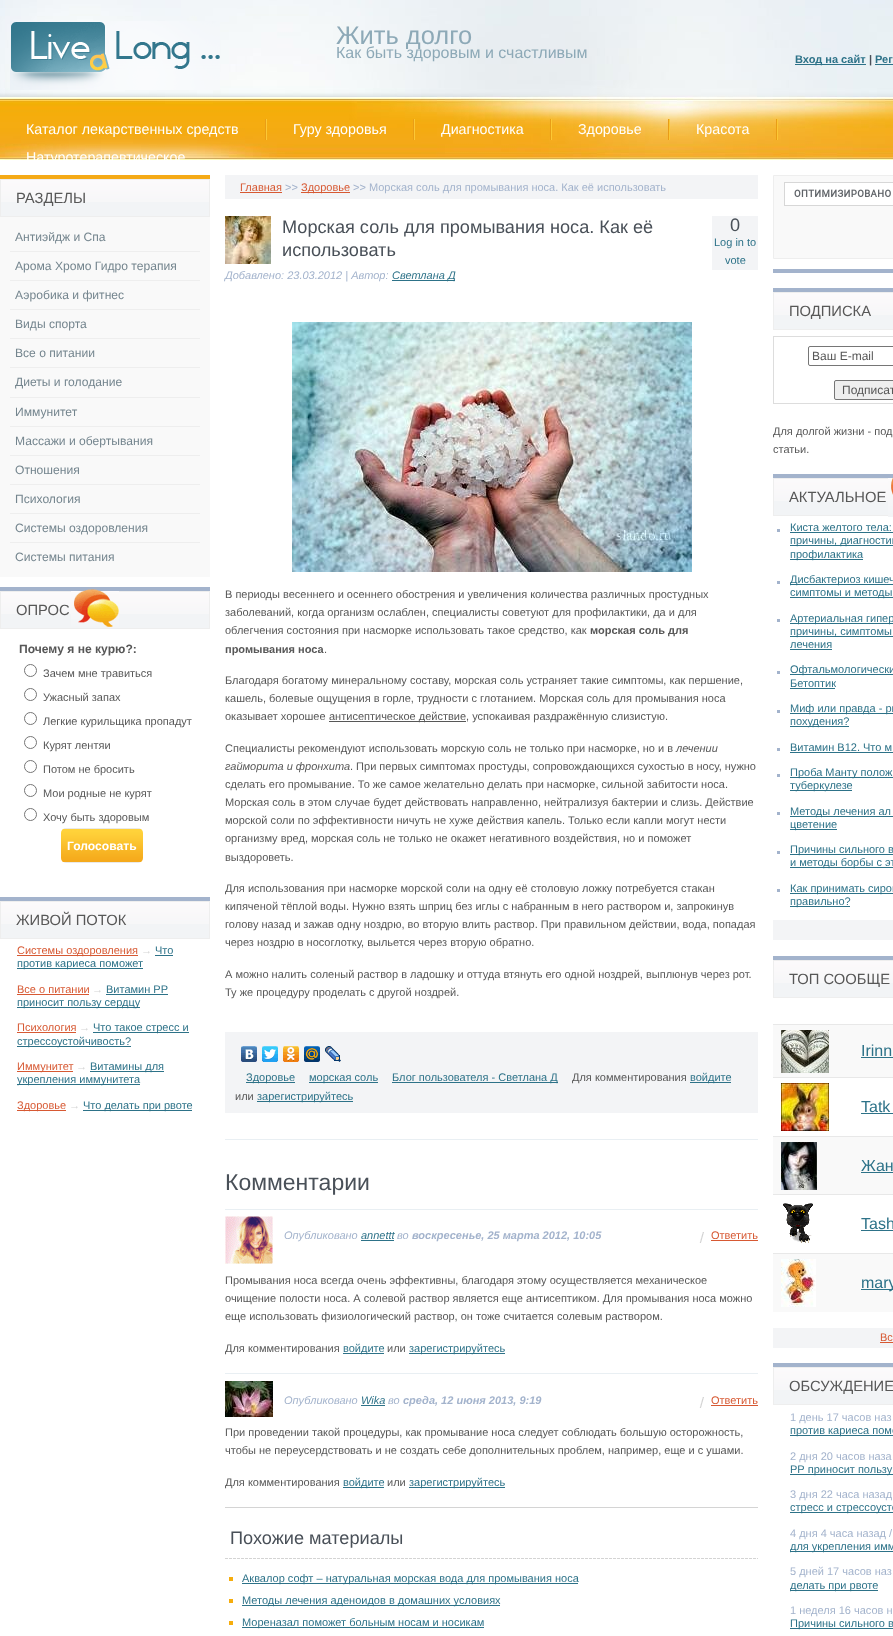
<!DOCTYPE html>
<meta charset="utf-8">
<style>body { margin: 0 } canvas { display: block }</style>
<canvas id="canvas" width="893" height="1636"></canvas>
<img id="img1" src="images/1.png" hidden>
<img id="img2" src="images/2.png" hidden>
<img id="img3" src="images/3.png" hidden>
<img id="img4" src="images/4.png" hidden>
<img id="img5" src="images/5.png" hidden>
<img id="img6" src="images/6.png" hidden>
<img id="img7" src="images/7.png" hidden>
<img id="img8" src="images/8.png" hidden>
<img id="img9" src="images/9.png" hidden>
<img id="img10" src="images/10.png" hidden>
<img id="img11" src="images/11.png" hidden>
<img id="img12" src="images/12.png" hidden>
<img id="img13" src="images/13.png" hidden>
<img id="img14" src="images/14.png" hidden>
<img id="img15" src="images/15.png" hidden>
<img id="img16" src="images/16.png" hidden>
<img id="img17" src="images/17.png" hidden>
<img id="img18" src="images/18.png" hidden>
<img id="img19" src="images/19.png" hidden>
<img id="img20" src="images/20.png" hidden>
<img id="img21" src="images/21.png" hidden>
<img id="img22" src="images/22.png" hidden>
<img id="img23" src="images/23.png" hidden>
<img id="img24" src="images/24.png" hidden>
<img id="img25" src="images/25.png" hidden>
<img id="img26" src="images/26.png" hidden>
<script>
window.onload = function () {
    const canvas = document.getElementById('canvas');
    const context = canvas.getContext('2d');
    context.miterLimit = 4;
    context.fontKerning = 'normal';

    context.fillStyle = 'rgb(255, 255, 255)';
    context.fillRect(0, 0, 893, 1636);
    context.drawImage(document.getElementById('img1'), 0, 0, 893, 160);
    context.drawImage(document.getElementById('img2'), 10, 21, 210, 69);
    context.fillStyle = 'rgb(45, 114, 136)';
    context.fillRect(795, 64, 71, 1);
    context.fillRect(875, 64, 18, 1);
    context.drawImage(document.getElementById('img3'), 265, 119, 2, 21);
    context.drawImage(document.getElementById('img3'), 413, 119, 2, 21);
    context.drawImage(document.getElementById('img3'), 550, 119, 2, 21);
    context.drawImage(document.getElementById('img3'), 668, 119, 2, 21);
    context.drawImage(document.getElementById('img3'), 776, 119, 2, 21);
    context.fillStyle = 'rgb(249, 249, 249)';
    context.fillRect(0, 217, 210, 360);
    context.fillStyle = 'rgb(245, 170, 22)';
    context.fillRect(0, 175, 210, 4);
    context.fillStyle = 'rgb(242, 244, 246)';
    context.fillRect(1, 202, 208, 14);
    context.drawImage(document.getElementById('img4'), 1, 180, 208, 22);
    context.strokeStyle = 'rgb(238, 238, 238)';
    context.strokeRect(0.5, 179.5, 209, 37);
    context.fillStyle = 'rgb(238, 238, 238)';
    context.fillRect(10, 251, 190, 1);
    context.fillRect(10, 280, 190, 1);
    context.fillRect(10, 309, 190, 1);
    context.fillRect(10, 338, 190, 1);
    context.fillRect(10, 367, 190, 1);
    context.fillRect(10, 397, 190, 1);
    context.fillRect(10, 426, 190, 1);
    context.fillRect(10, 455, 190, 1);
    context.fillRect(10, 484, 190, 1);
    context.fillRect(10, 513, 190, 1);
    context.fillRect(10, 542, 190, 1);
    context.fillStyle = 'rgb(163, 179, 204)';
    context.fillRect(0, 587, 210, 4);
    context.fillStyle = 'rgb(242, 244, 246)';
    context.fillRect(1, 614, 208, 14);
    context.drawImage(document.getElementById('img4'), 1, 592, 208, 22);
    context.strokeRect(0.5, 591.5, 209, 37);
    context.drawImage(document.getElementById('img5'), 71, 589, 48, 38);
    context.beginPath();
    context.arc(30.5, 670.5, 6, 0, 2 * Math.PI);
    context.strokeStyle = 'rgb(118, 118, 118)';
    context.stroke();
    context.beginPath();
    context.arc(30.5, 694.5, 6, 0, 2 * Math.PI);
    context.stroke();
    context.beginPath();
    context.arc(30.5, 718.5, 6, 0, 2 * Math.PI);
    context.stroke();
    context.beginPath();
    context.arc(30.5, 742.5, 6, 0, 2 * Math.PI);
    context.stroke();
    context.beginPath();
    context.arc(30.5, 766.5, 6, 0, 2 * Math.PI);
    context.stroke();
    context.beginPath();
    context.arc(30.5, 790.5, 6, 0, 2 * Math.PI);
    context.stroke();
    context.beginPath();
    context.arc(30.5, 814.5, 6, 0, 2 * Math.PI);
    context.stroke();
    context.drawImage(document.getElementById('img6'), 61, 828, 82, 35);
    context.fillStyle = 'rgb(163, 179, 204)';
    context.fillRect(0, 897, 210, 4);
    context.fillStyle = 'rgb(242, 244, 246)';
    context.fillRect(1, 924, 208, 14);
    context.drawImage(document.getElementById('img4'), 1, 902, 208, 22);
    context.strokeStyle = 'rgb(238, 238, 238)';
    context.strokeRect(0.5, 901.5, 209, 37);
    context.fillStyle = 'rgb(215, 89, 51)';
    context.fillRect(17, 955, 121, 1);
    context.fillStyle = 'rgb(45, 114, 136)';
    context.fillRect(155, 955, 18, 1);
    context.fillRect(17, 968, 126, 1);
    context.fillStyle = 'rgb(215, 89, 51)';
    context.fillRect(17, 994, 72, 1);
    context.fillStyle = 'rgb(45, 114, 136)';
    context.fillRect(106, 994, 62, 1);
    context.fillRect(17, 1007, 123, 1);
    context.fillStyle = 'rgb(215, 89, 51)';
    context.fillRect(17, 1032, 59, 1);
    context.fillStyle = 'rgb(45, 114, 136)';
    context.fillRect(93, 1032, 96, 1);
    context.fillRect(17, 1046, 114, 1);
    context.fillStyle = 'rgb(215, 89, 51)';
    context.fillRect(17, 1071, 56, 1);
    context.fillStyle = 'rgb(45, 114, 136)';
    context.fillRect(90, 1071, 74, 1);
    context.fillRect(17, 1084, 123, 1);
    context.fillStyle = 'rgb(215, 89, 51)';
    context.fillRect(17, 1110, 49, 1);
    context.fillStyle = 'rgb(45, 114, 136)';
    context.fillRect(83, 1110, 109, 1);
    context.fillStyle = 'rgb(243, 244, 246)';
    context.fillRect(225, 175, 533, 24);
    context.fillStyle = 'rgb(215, 89, 51)';
    context.fillRect(240, 192, 42, 1);
    context.fillRect(301, 192, 49, 1);
    context.fillStyle = 'rgb(233, 239, 243)';
    context.fillRect(225, 1139, 533, 1);
    context.drawImage(document.getElementById('img7'), 225, 216, 46, 48);
    context.fillStyle = 'rgb(243, 244, 246)';
    context.fillRect(712, 216, 46, 54);
    context.fillStyle = 'rgb(45, 114, 136)';
    context.fillRect(392, 280, 63, 1);
    context.drawImage(document.getElementById('img8'), 292, 322, 400, 250);
    context.fillStyle = 'rgb(87, 87, 87)';
    context.fillRect(329, 721, 137, 1);
    context.fillStyle = 'rgb(243, 244, 246)';
    context.fillRect(225, 1032, 533, 81);
    context.drawImage(document.getElementById('img9'), 241, 1046, 16, 16);
    context.drawImage(document.getElementById('img10'), 262, 1046, 16, 16);
    context.drawImage(document.getElementById('img11'), 283, 1046, 16, 16);
    context.drawImage(document.getElementById('img12'), 304, 1046, 16, 16);
    context.drawImage(document.getElementById('img13'), 325, 1046, 16, 16);
    context.fillStyle = 'rgb(45, 114, 136)';
    context.fillRect(246, 1082, 49, 1);
    context.fillRect(309, 1082, 69, 1);
    context.fillRect(392, 1082, 166, 1);
    context.fillRect(690, 1082, 41, 1);
    context.fillRect(257, 1101, 96, 1);
    context.fillStyle = 'rgb(212, 212, 212)';
    context.fillRect(225, 1507, 533, 1);
    context.fillStyle = 'rgb(233, 239, 243)';
    context.fillRect(225, 1209, 533, 1);
    context.drawImage(document.getElementById('img14'), 225, 1216, 48, 48);
    context.fillStyle = 'rgb(45, 114, 136)';
    context.fillRect(361, 1240, 33, 1);
    context.drawImage(document.getElementById('img15'), 699, 1232, 5, 11);
    context.fillStyle = 'rgb(215, 89, 51)';
    context.fillRect(711, 1240, 47, 1);
    context.fillStyle = 'rgb(45, 114, 136)';
    context.fillRect(343, 1353, 41, 1);
    context.fillRect(409, 1353, 96, 1);
    context.fillStyle = 'rgb(233, 239, 243)';
    context.fillRect(225, 1373, 533, 1);
    context.drawImage(document.getElementById('img16'), 225, 1381, 48, 36);
    context.fillStyle = 'rgb(45, 114, 136)';
    context.fillRect(361, 1405, 24, 1);
    context.drawImage(document.getElementById('img15'), 699, 1397, 5, 11);
    context.fillStyle = 'rgb(215, 89, 51)';
    context.fillRect(711, 1405, 47, 1);
    context.fillStyle = 'rgb(45, 114, 136)';
    context.fillRect(343, 1487, 41, 1);
    context.fillRect(409, 1487, 96, 1);
    context.drawImage(document.getElementById('img17'), 225, 1558, 533, 1);
    context.fillStyle = 'rgb(246, 173, 13)';
    context.fillRect(229, 1577, 4, 4);
    context.fillStyle = 'rgb(45, 114, 136)';
    context.fillRect(242, 1583, 336, 1);
    context.fillStyle = 'rgb(246, 173, 13)';
    context.fillRect(229, 1599, 4, 4);
    context.fillStyle = 'rgb(45, 114, 136)';
    context.fillRect(242, 1605, 258, 1);
    context.fillStyle = 'rgb(246, 173, 13)';
    context.fillRect(229, 1621, 4, 4);
    context.fillStyle = 'rgb(45, 114, 136)';
    context.fillRect(242, 1627, 242, 1);
    context.fillStyle = 'rgb(249, 249, 249)';
    context.beginPath();
    context.rect(773.5, 175.5, 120, 83);
    context.fill();
    context.stroke();
    context.fillStyle = 'rgb(255, 255, 255)';
    context.fillRect(785, 183, 108, 22);
    context.drawImage(document.getElementById('img18'), 794, 189, 97, 8);
    context.strokeStyle = 'rgb(215, 215, 215)';
    context.strokeRect(784.5, 182.5, 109, 23);
    context.fillStyle = 'rgb(163, 179, 204)';
    context.fillRect(773, 269, 120, 4);
    context.fillRect(773, 288, 120, 4);
    context.fillStyle = 'rgb(242, 244, 246)';
    context.fillRect(774, 315, 119, 14);
    context.drawImage(document.getElementById('img19'), 774, 293, 119, 22);
    context.strokeStyle = 'rgb(238, 238, 238)';
    context.strokeRect(773.5, 292.5, 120, 37);
    context.strokeStyle = 'rgb(221, 221, 221)';
    context.strokeRect(773.5, 336.5, 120, 67);
    context.beginPath();
    context.roundRect(808.5, 346.5, 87, 19, 1.5);
    context.strokeStyle = 'rgb(118, 118, 118)';
    context.stroke();
    context.fillStyle = 'rgb(239, 239, 239)';
    context.beginPath();
    context.roundRect(834.5, 380.5, 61, 19, 1.5);
    context.fill();
    context.stroke();
    context.fillStyle = 'rgb(163, 179, 204)';
    context.fillRect(773, 474, 120, 4);
    context.fillStyle = 'rgb(242, 244, 246)';
    context.fillRect(774, 501, 114, 14);
    context.drawImage(document.getElementById('img20'), 774, 479, 114, 22);
    context.strokeStyle = 'rgb(238, 238, 238)';
    context.strokeRect(773.5, 478.5, 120, 37);
    context.drawImage(document.getElementById('img21'), 888, 478, 5, 39);
    context.fillStyle = 'rgb(163, 179, 204)';
    context.fillRect(777, 529, 3, 3);
    context.fillStyle = 'rgb(45, 114, 136)';
    context.fillRect(790, 532, 103, 1);
    context.fillRect(790, 545, 103, 1);
    context.fillRect(790, 559, 73, 1);
    context.fillStyle = 'rgb(163, 179, 204)';
    context.fillRect(777, 581, 3, 3);
    context.fillStyle = 'rgb(45, 114, 136)';
    context.fillRect(790, 584, 103, 1);
    context.fillRect(790, 597, 103, 1);
    context.fillStyle = 'rgb(163, 179, 204)';
    context.fillRect(777, 619, 3, 3);
    context.fillStyle = 'rgb(45, 114, 136)';
    context.fillRect(790, 623, 103, 1);
    context.fillRect(790, 636, 103, 1);
    context.fillRect(790, 649, 42, 1);
    context.fillStyle = 'rgb(163, 179, 204)';
    context.fillRect(777, 671, 3, 3);
    context.fillStyle = 'rgb(45, 114, 136)';
    context.fillRect(790, 674, 103, 1);
    context.fillRect(790, 688, 45, 1);
    context.fillStyle = 'rgb(163, 179, 204)';
    context.fillRect(777, 710, 3, 3);
    context.fillStyle = 'rgb(45, 114, 136)';
    context.fillRect(790, 713, 103, 1);
    context.fillRect(790, 726, 59, 1);
    context.fillStyle = 'rgb(163, 179, 204)';
    context.fillRect(777, 748, 3, 3);
    context.fillStyle = 'rgb(45, 114, 136)';
    context.fillRect(790, 752, 103, 1);
    context.fillStyle = 'rgb(163, 179, 204)';
    context.fillRect(777, 774, 3, 3);
    context.fillStyle = 'rgb(45, 114, 136)';
    context.fillRect(790, 777, 103, 1);
    context.fillRect(790, 790, 62, 1);
    context.fillStyle = 'rgb(163, 179, 204)';
    context.fillRect(777, 812, 3, 3);
    context.fillStyle = 'rgb(45, 114, 136)';
    context.fillRect(790, 816, 103, 1);
    context.fillRect(790, 829, 47, 1);
    context.fillStyle = 'rgb(163, 179, 204)';
    context.fillRect(777, 851, 3, 3);
    context.fillStyle = 'rgb(45, 114, 136)';
    context.fillRect(790, 854, 103, 1);
    context.fillRect(790, 867, 103, 1);
    context.fillStyle = 'rgb(163, 179, 204)';
    context.fillRect(777, 889, 3, 3);
    context.fillStyle = 'rgb(45, 114, 136)';
    context.fillRect(790, 893, 103, 1);
    context.fillRect(790, 906, 60, 1);
    context.fillStyle = 'rgb(243, 244, 246)';
    context.fillRect(773, 920, 120, 20);
    context.fillStyle = 'rgb(163, 179, 204)';
    context.fillRect(773, 956, 120, 4);
    context.fillStyle = 'rgb(242, 244, 246)';
    context.fillRect(774, 983, 119, 14);
    context.drawImage(document.getElementById('img19'), 774, 961, 119, 22);
    context.strokeRect(773.5, 960.5, 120, 37);
    context.fillStyle = 'rgb(249, 249, 249)';
    context.fillRect(773, 1025, 120, 52);
    context.fillStyle = 'rgb(232, 232, 232)';
    context.fillRect(773, 1024, 120, 1);
    context.drawImage(document.getElementById('img22'), 781, 1030, 48, 43);
    context.fillStyle = 'rgb(45, 114, 136)';
    context.fillRect(861, 1057, 32, 1);
    context.fillStyle = 'rgb(232, 232, 232)';
    context.fillRect(773, 1077, 120, 1);
    context.drawImage(document.getElementById('img23'), 781, 1083, 48, 48);
    context.fillStyle = 'rgb(45, 114, 136)';
    context.fillRect(861, 1113, 32, 1);
    context.fillStyle = 'rgb(249, 249, 249)';
    context.fillRect(773, 1137, 120, 57);
    context.fillStyle = 'rgb(232, 232, 232)';
    context.fillRect(773, 1136, 120, 1);
    context.drawImage(document.getElementById('img24'), 781, 1142, 36, 48);
    context.fillStyle = 'rgb(45, 114, 136)';
    context.fillRect(861, 1172, 32, 1);
    context.fillStyle = 'rgb(232, 232, 232)';
    context.fillRect(773, 1194, 120, 1);
    context.drawImage(document.getElementById('img25'), 783, 1203, 30, 40);
    context.fillStyle = 'rgb(45, 114, 136)';
    context.fillRect(861, 1230, 32, 1);
    context.fillStyle = 'rgb(249, 249, 249)';
    context.fillRect(773, 1254, 120, 58);
    context.fillStyle = 'rgb(232, 232, 232)';
    context.fillRect(773, 1253, 120, 1);
    context.drawImage(document.getElementById('img26'), 781, 1259, 35, 48);
    context.fillStyle = 'rgb(45, 114, 136)';
    context.fillRect(861, 1289, 32, 1);
    context.fillStyle = 'rgb(243, 244, 246)';
    context.fillRect(773, 1328, 120, 20);
    context.fillStyle = 'rgb(215, 89, 51)';
    context.fillRect(880, 1342, 13, 1);
    context.fillStyle = 'rgb(163, 179, 204)';
    context.fillRect(773, 1363, 120, 4);
    context.fillStyle = 'rgb(242, 244, 246)';
    context.fillRect(774, 1390, 119, 14);
    context.drawImage(document.getElementById('img19'), 774, 1368, 119, 22);
    context.strokeRect(773.5, 1367.5, 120, 37);
    context.fillStyle = 'rgb(45, 114, 136)';
    context.fillRect(790, 1435, 103, 1);
    context.fillRect(790, 1474, 103, 1);
    context.fillRect(790, 1512, 103, 1);
    context.fillRect(790, 1551, 103, 1);
    context.fillRect(790, 1590, 88, 1);
    context.fillRect(790, 1628, 103, 1);
    context.font = '25.5px Liberation Sans';
    context.fillStyle = 'rgb(141, 169, 183)';
    context.fillText('Жить долго', 336, 44);
    context.font = '16px Liberation Sans';
    context.fillText('Как быть здоровым и счастливым', 336, 58);
    context.font = 'bold 11px Liberation Sans';
    context.fillStyle = 'rgb(45, 114, 136)';
    context.fillText('Вход на сайт', 795, 63);
    context.fillStyle = 'rgb(73, 80, 88)';
    context.fillText('|', 869, 63);
    context.fillStyle = 'rgb(45, 114, 136)';
    context.fillText('Рег', 875, 63);
    context.font = '14.25px Liberation Sans';
    context.fillStyle = 'rgb(255, 255, 255)';
    context.fillText('Каталог лекарственных средств', 26, 134);
    context.fillText('Гуру здоровья', 293, 134);
    context.fillText('Диагностика', 441, 134);
    context.fillText('Здоровье', 578, 134);
    context.fillText('Красота', 696, 134);
    context.fillText('Натуротерапевтическое', 26, 162);
    context.font = '14.75px Liberation Sans';
    context.fillStyle = 'rgb(87, 87, 87)';
    context.fillText('РАЗДЕЛЫ', 16, 203);
    context.font = '12.1px Liberation Sans';
    context.fillStyle = 'rgb(116, 133, 142)';
    context.fillText('Антиэйдж и Спа', 15, 241);
    context.fillText('Арома Хромо Гидро терапия', 15, 270);
    context.fillText('Аэробика и фитнес', 15, 299);
    context.fillText('Виды спорта', 15, 328);
    context.fillText('Все о питании', 15, 357);
    context.fillText('Диеты и голодание', 15, 386);
    context.fillText('Иммунитет', 15, 416);
    context.fillText('Массажи и обертывания', 15, 445);
    context.fillText('Отношения', 15, 474);
    context.fillText('Психология', 15, 503);
    context.fillText('Системы оздоровления', 15, 532);
    context.fillText('Системы питания', 15, 561);
    context.font = '14.75px Liberation Sans';
    context.fillStyle = 'rgb(87, 87, 87)';
    context.fillText('ОПРОС', 16, 615);
    context.font = 'bold 12.1px Liberation Sans';
    context.fillText('Почему я не курю?:', 19, 653);
    context.font = '11px Liberation Sans';
    context.fillText('Зачем мне травиться', 43, 677);
    context.fillText('Ужасный запах', 43, 701);
    context.fillText('Легкие курильщика пропадут', 43, 725);
    context.fillText('Курят лентяи', 43, 749);
    context.fillText('Потом не бросить', 43, 773);
    context.fillText('Мои родные не курят', 43, 797);
    context.fillText('Хочу быть здоровым', 43, 821);
    context.font = 'bold 12.1px Liberation Sans';
    context.fillStyle = 'rgb(255, 255, 255)';
    context.fillText('Голосовать', 67, 850);
    context.font = '14.75px Liberation Sans';
    context.fillStyle = 'rgb(87, 87, 87)';
    context.fillText('ЖИВОЙ ПОТОК', 16, 925);
    context.font = '11px Liberation Sans';
    context.fillStyle = 'rgb(215, 89, 51)';
    context.fillText('Системы оздоровления', 17, 954);
    context.fillStyle = 'rgb(212, 212, 212)';
    context.fillText('→', 141, 954);
    context.fillStyle = 'rgb(45, 114, 136)';
    context.fillText('Что', 155, 954);
    context.fillText('против кариеса поможет', 17, 967);
    context.fillStyle = 'rgb(215, 89, 51)';
    context.fillText('Все о питании', 17, 993);
    context.fillStyle = 'rgb(212, 212, 212)';
    context.fillText('→', 92, 993);
    context.fillStyle = 'rgb(45, 114, 136)';
    context.fillText('Витамин РР', 106, 993);
    context.fillText('приносит пользу сердцу', 17, 1006);
    context.fillStyle = 'rgb(215, 89, 51)';
    context.fillText('Психология', 17, 1031);
    context.fillStyle = 'rgb(212, 212, 212)';
    context.fillText('→', 79, 1031);
    context.fillStyle = 'rgb(45, 114, 136)';
    context.fillText('Что такое стресс и', 93, 1031);
    context.fillText('стрессоустойчивость?', 17, 1045);
    context.fillStyle = 'rgb(215, 89, 51)';
    context.fillText('Иммунитет', 17, 1070);
    context.fillStyle = 'rgb(212, 212, 212)';
    context.fillText('→', 76, 1070);
    context.fillStyle = 'rgb(45, 114, 136)';
    context.fillText('Витамины для', 90, 1070);
    context.fillText('укрепления иммунитета', 17, 1083);
    context.fillStyle = 'rgb(215, 89, 51)';
    context.fillText('Здоровье', 17, 1109);
    context.fillStyle = 'rgb(212, 212, 212)';
    context.fillText('→', 69, 1109);
    context.fillStyle = 'rgb(45, 114, 136)';
    context.fillText('Что делать при рвоте', 83, 1109);
    context.fillStyle = 'rgb(215, 89, 51)';
    context.fillText('Главная', 240, 191);
    context.fillStyle = 'rgb(163, 179, 204)';
    context.fillText('>>', 285, 191);
    context.fillStyle = 'rgb(215, 89, 51)';
    context.fillText('Здоровье', 301, 191);
    context.fillStyle = 'rgb(163, 179, 204)';
    context.fillText('>> Морская соль для промывания носа. Как её использовать', 353, 191);
    context.font = '18.15px Liberation Sans';
    context.fillStyle = 'rgb(73, 80, 88)';
    context.fillText('0', 730, 231);
    context.font = '11px Liberation Sans';
    context.fillStyle = 'rgb(45, 114, 136)';
    context.fillText('Log in to', 714, 246);
    context.fillText('vote', 725, 264);
    context.font = '18.15px Liberation Sans';
    context.fillStyle = 'rgb(73, 80, 88)';
    context.fillText('Морская соль для промывания носа. Как её', 282, 233);
    context.fillText('использовать', 282, 256);
    context.font = 'italic 11px Liberation Sans';
    context.fillStyle = 'rgb(163, 179, 204)';
    context.fillText('Добавлено: 23.03.2012 | Автор:', 225, 279);
    context.fillStyle = 'rgb(45, 114, 136)';
    context.fillText('Светлана Д', 392, 279);
    context.font = '11px Liberation Sans';
    context.fillStyle = 'rgb(87, 87, 87)';
    context.fillText('В периоды весеннего и осеннего обострения и увеличения количества различных простудных', 225, 598);
    context.fillText('заболеваний, когда организм ослаблен, специалисты советуют для профилактики, да и для', 225, 616);
    context.fillText('облегчения состояния при насморке использовать такое средство, как', 225, 634);
    context.font = 'bold 11px Liberation Sans';
    context.fillText('морская соль для', 590, 634);
    context.fillText('промывания носа', 225, 653);
    context.font = '11px Liberation Sans';
    context.fillText('.', 324, 653);
    context.fillText('Благодаря богатому минеральному составу, морская соль устраняет такие симптомы, как першение,', 225, 684);
    context.fillText('кашель, болевые ощущения в горле, трудности с глотанием. Морская соль для промывания носа', 225, 702);
    context.fillText('оказывает хорошее', 225, 720);
    context.fillText('антисептическое действие, успокаивая раздражённую слизистую.', 329, 720);
    context.fillText('Специалисты рекомендуют использовать морскую соль не только при насморке, но и в', 225, 752);
    context.font = 'italic 11px Liberation Sans';
    context.fillText('лечении', 676, 752);
    context.fillText('гайморита и фронхита', 225, 770);
    context.font = '11px Liberation Sans';
    context.fillText('. При первых симптомах простуды, сопровождающихся сухостью в носу, нужно', 350, 770);
    context.fillText('сделать его промывание. То же самое желательно делать при насморке, сильной забитости носа.', 225, 788);
    context.fillText('Морская соль в этом случае будет действовать направленно, нейтрализуя бактерии и слизь. Действие', 225, 806);
    context.fillText('морской соли по эффективности ничуть не хуже действия капель. Только если капли могут нести', 225, 824);
    context.fillText('организму вред, морская соль не только не окажет негативного воздействия, но и поможет', 225, 842);
    context.fillText('выздороветь.', 225, 861);
    context.fillText('Для использования при насморке морской соли на одну её столовую ложку потребуется стакан', 225, 892);
    context.fillText('кипяченой тёплой воды. Нужно взять шприц без иглы с набранным в него раствором и, запрокинув', 225, 910);
    context.fillText('голову назад и зажав одну ноздрю, во вторую влить раствор. При правильном действии, вода, попадая', 225, 928);
    context.fillText('через ноздрю в носоглотку, выльется через вторую обратно.', 225, 946);
    context.fillText('А можно налить соленый раствор в ладошку и оттуда втянуть его одной ноздрей, выплюнув через рот.', 225, 978);
    context.fillText('Ту же процедуру проделать с другой ноздрей.', 225, 996);
    context.fillStyle = 'rgb(45, 114, 136)';
    context.fillText('Здоровье', 246, 1081);
    context.fillText('морская соль', 309, 1081);
    context.fillText('Блог пользователя - Светлана Д', 392, 1081);
    context.fillStyle = 'rgb(87, 87, 87)';
    context.fillText('Для комментирования', 572, 1081);
    context.fillStyle = 'rgb(45, 114, 136)';
    context.fillText('войдите', 690, 1081);
    context.fillStyle = 'rgb(87, 87, 87)';
    context.fillText('или', 235, 1100);
    context.fillStyle = 'rgb(45, 114, 136)';
    context.fillText('зарегистрируйтесь', 257, 1100);
    context.font = '23px Liberation Sans';
    context.fillStyle = 'rgb(73, 80, 88)';
    context.fillText('Комментарии', 225, 1190);
    context.font = 'italic 11px Liberation Sans';
    context.fillStyle = 'rgb(163, 179, 204)';
    context.fillText('Опубликовано', 284, 1239);
    context.fillStyle = 'rgb(45, 114, 136)';
    context.fillText('annettt', 361, 1239);
    context.fillStyle = 'rgb(163, 179, 204)';
    context.fillText('во', 397, 1239);
    context.font = 'italic bold 11px Liberation Sans';
    context.fillText('воскресенье, 25 марта 2012, 10:05', 412, 1239);
    context.font = '11px Liberation Sans';
    context.fillStyle = 'rgb(215, 89, 51)';
    context.fillText('Ответить', 711, 1239);
    context.fillStyle = 'rgb(87, 87, 87)';
    context.fillText('Промывания носа всегда очень эффективны, благодаря этому осуществляется механическое', 225, 1284);
    context.fillText('очищение полости носа. А солевой раствор является еще антисептиком. Для промывания носа можно', 225, 1302);
    context.fillText('еще использовать физиологический раствор, он тоже считается солевым раствором.', 225, 1320);
    context.fillText('Для комментирования', 225, 1352);
    context.fillStyle = 'rgb(45, 114, 136)';
    context.fillText('войдите', 343, 1352);
    context.fillStyle = 'rgb(87, 87, 87)';
    context.fillText('или', 387, 1352);
    context.fillStyle = 'rgb(45, 114, 136)';
    context.fillText('зарегистрируйтесь', 409, 1352);
    context.font = 'italic 11px Liberation Sans';
    context.fillStyle = 'rgb(163, 179, 204)';
    context.fillText('Опубликовано', 284, 1404);
    context.fillStyle = 'rgb(45, 114, 136)';
    context.fillText('Wika', 361, 1404);
    context.fillStyle = 'rgb(163, 179, 204)';
    context.fillText('во', 388, 1404);
    context.font = 'italic bold 11px Liberation Sans';
    context.fillText('среда, 12 июня 2013, 9:19', 403, 1404);
    context.font = '11px Liberation Sans';
    context.fillStyle = 'rgb(215, 89, 51)';
    context.fillText('Ответить', 711, 1404);
    context.fillStyle = 'rgb(87, 87, 87)';
    context.fillText('При проведении такой процедуры, как промывание носа следует соблюдать большую осторожность,', 225, 1436);
    context.fillText('чтобы не переусердствовать и не создать себе дополнительных проблем, например, еще и с ушами.', 225, 1454);
    context.fillText('Для комментирования', 225, 1486);
    context.fillStyle = 'rgb(45, 114, 136)';
    context.fillText('войдите', 343, 1486);
    context.fillStyle = 'rgb(87, 87, 87)';
    context.fillText('или', 387, 1486);
    context.fillStyle = 'rgb(45, 114, 136)';
    context.fillText('зарегистрируйтесь', 409, 1486);
    context.font = '18.15px Liberation Sans';
    context.fillStyle = 'rgb(73, 80, 88)';
    context.fillText('Похожие материалы', 230, 1544);
    context.font = '11px Liberation Sans';
    context.fillStyle = 'rgb(45, 114, 136)';
    context.fillText('Аквалор софт – натуральная морская вода для промывания носа', 242, 1582);
    context.fillText('Методы лечения аденоидов в домашних условиях', 242, 1604);
    context.fillText('Мореназал поможет больным носам и носикам', 242, 1626);
    context.font = '14.75px Liberation Sans';
    context.fillStyle = 'rgb(87, 87, 87)';
    context.fillText('ПОДПИСКА', 789, 316);
    context.font = '12px Liberation Sans';
    context.fillText('Ваш E-mail', 812, 360);
    context.fillText('Подписат', 842, 394);
    context.font = '11px Liberation Sans';
    context.fillText('Для долгой жизни - под', 773, 435);
    context.fillText('статьи.', 773, 453);
    context.font = '14.75px Liberation Sans';
    context.fillText('АКТУАЛЬНОЕ', 789, 502);
    context.font = '11px Liberation Sans';
    context.fillStyle = 'rgb(45, 114, 136)';
    context.fillText('Киста желтого тела:', 790, 531);
    context.fillText('причины, диагностик', 790, 544);
    context.fillText('профилактика', 790, 558);
    context.fillText('Дисбактериоз кишеч', 790, 583);
    context.fillText('симптомы и методы', 790, 596);
    context.fillText('Артериальная гипер', 790, 622);
    context.fillText('причины, симптомы', 790, 635);
    context.fillText('лечения', 790, 648);
    context.fillText('Офтальмологически', 790, 673);
    context.fillText('Бетоптик', 790, 687);
    context.fillText('Миф или правда - ры', 790, 712);
    context.fillText('похудения?', 790, 725);
    context.fillText('Витамин В12. Что м', 790, 751);
    context.fillText('Проба Манту положи', 790, 776);
    context.fillText('туберкулезе', 790, 789);
    context.fillText('Методы лечения ал', 790, 815);
    context.fillText('цветение', 790, 828);
    context.fillText('Причины сильного в', 790, 853);
    context.fillText('и методы борбы с эт', 790, 866);
    context.fillText('Как принимать сироп', 790, 892);
    context.fillText('правильно?', 790, 905);
    context.font = '14.75px Liberation Sans';
    context.fillStyle = 'rgb(87, 87, 87)';
    context.fillText('ТОП СООБЩЕ', 789, 984);
    context.font = '16px Liberation Sans';
    context.fillStyle = 'rgb(45, 114, 136)';
    context.fillText('Irinn', 861, 1056);
    context.fillText('Tatk', 861, 1112);
    context.fillText('Жан', 861, 1171);
    context.fillText('Tash', 861, 1229);
    context.fillText('mary', 861, 1288);
    context.font = '11px Liberation Sans';
    context.fillStyle = 'rgb(215, 89, 51)';
    context.fillText('Вс', 880, 1341);
    context.font = '14.75px Liberation Sans';
    context.fillStyle = 'rgb(87, 87, 87)';
    context.fillText('ОБСУЖДЕНИЕ', 789, 1391);
    context.font = '11px Liberation Sans';
    context.fillStyle = 'rgb(163, 179, 204)';
    context.fillText('1 день 17 часов наз', 790, 1421);
    context.fillStyle = 'rgb(45, 114, 136)';
    context.fillText('против кариеса помо', 790, 1434);
    context.fillStyle = 'rgb(163, 179, 204)';
    context.fillText('2 дня 20 часов наза', 790, 1460);
    context.fillStyle = 'rgb(45, 114, 136)';
    context.fillText('РР приносит пользу', 790, 1473);
    context.fillStyle = 'rgb(163, 179, 204)';
    context.fillText('3 дня 22 часа назад', 790, 1498);
    context.fillStyle = 'rgb(45, 114, 136)';
    context.fillText('стресс и стрессоусто', 790, 1511);
    context.fillStyle = 'rgb(163, 179, 204)';
    context.fillText('4 дня 4 часа назад /', 790, 1537);
    context.fillStyle = 'rgb(45, 114, 136)';
    context.fillText('для укрепления имм', 790, 1550);
    context.fillStyle = 'rgb(163, 179, 204)';
    context.fillText('5 дней 17 часов наз', 790, 1575);
    context.fillStyle = 'rgb(45, 114, 136)';
    context.fillText('делать при рвоте', 790, 1589);
    context.fillStyle = 'rgb(163, 179, 204)';
    context.fillText('1 неделя 16 часов н', 790, 1614);
    context.fillStyle = 'rgb(45, 114, 136)';
    context.fillText('Причины сильного в', 790, 1627);
};
</script>
